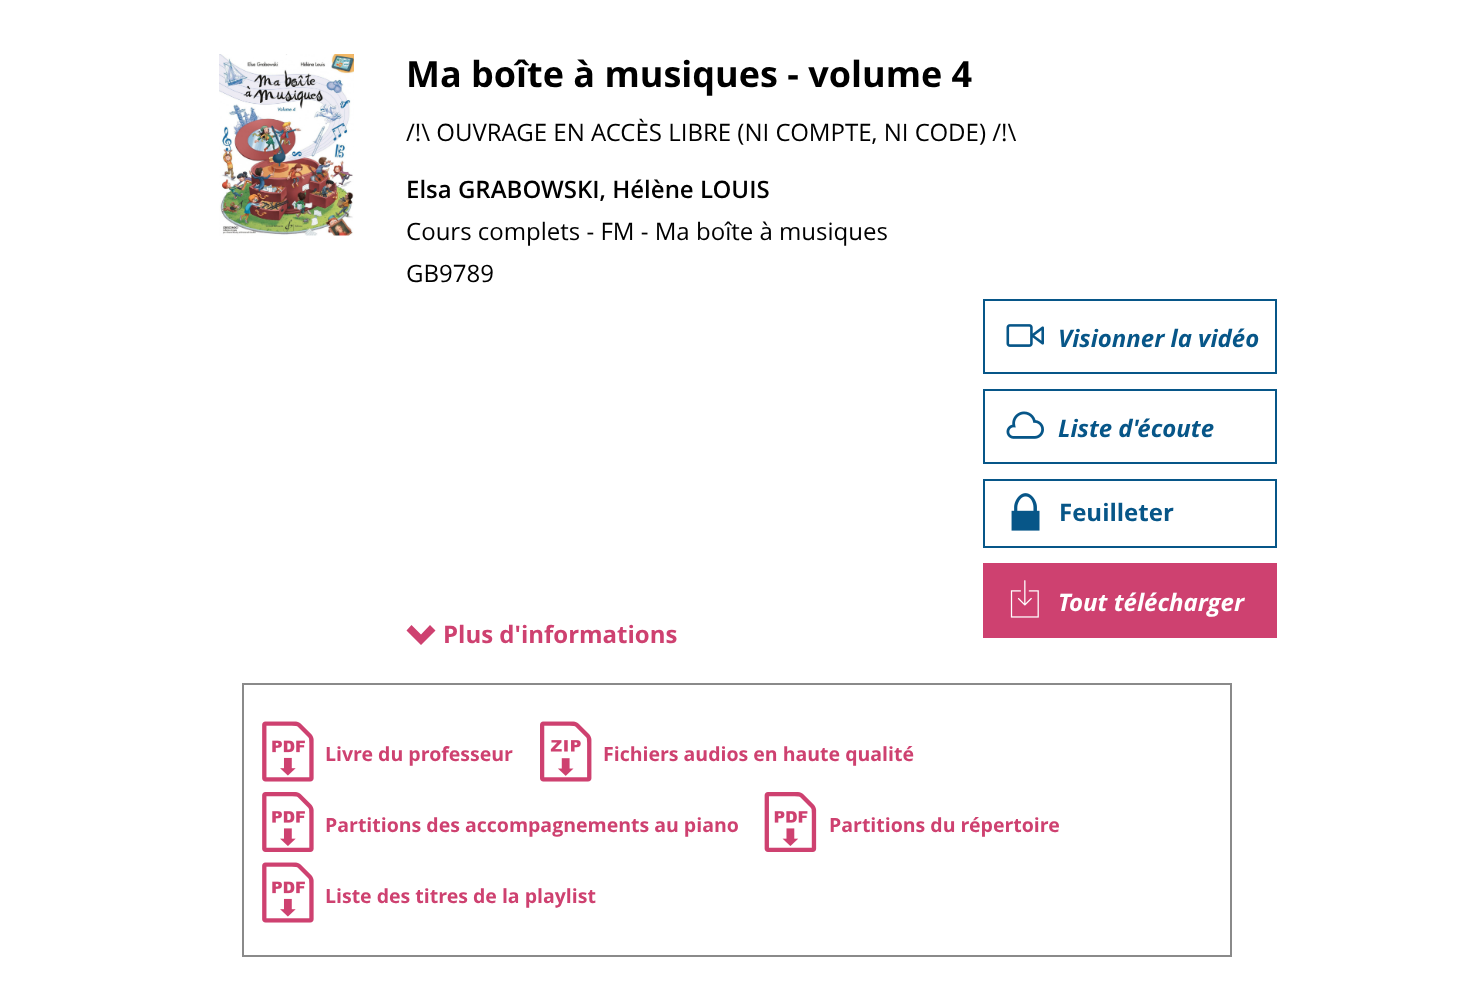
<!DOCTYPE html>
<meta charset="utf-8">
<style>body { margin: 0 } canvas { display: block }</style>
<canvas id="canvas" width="1471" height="994"></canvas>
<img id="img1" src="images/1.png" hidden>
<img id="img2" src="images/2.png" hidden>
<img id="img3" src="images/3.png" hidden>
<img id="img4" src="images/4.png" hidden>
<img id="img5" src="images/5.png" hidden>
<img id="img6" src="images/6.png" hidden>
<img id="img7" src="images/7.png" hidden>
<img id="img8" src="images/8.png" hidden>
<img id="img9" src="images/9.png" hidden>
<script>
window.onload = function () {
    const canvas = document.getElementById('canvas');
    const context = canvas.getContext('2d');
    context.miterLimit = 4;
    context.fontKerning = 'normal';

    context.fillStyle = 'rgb(255, 255, 255)';
    context.fillRect(0, 0, 1471, 994);
    context.drawImage(document.getElementById('img1'), 219, 54, 135, 182);
    context.fillStyle = 'rgb(206, 65, 112)';
    context.beginPath();
    context.moveTo(435.5, 630.5);
    context.lineTo(421, 645);
    context.lineTo(406.5, 630.5);
    context.lineTo(411.5, 625);
    context.lineTo(421, 634.5);
    context.lineTo(430, 625);
    context.closePath();
    context.fill();
    context.strokeStyle = 'rgb(7, 86, 136)';
    context.lineWidth = 2;
    context.strokeRect(984, 300, 292, 73);
    context.drawImage(document.getElementById('img2'), 1006, 324, 38, 23);
    context.strokeRect(984, 390, 292, 73);
    context.drawImage(document.getElementById('img3'), 1006, 411, 38, 28);
    context.strokeRect(984, 480, 292, 67);
    context.drawImage(document.getElementById('img4'), 1011, 493, 29, 38);
    context.fillRect(983, 563, 294, 75);
    context.drawImage(document.getElementById('img5'), 1010, 580, 29, 38);
    context.strokeStyle = 'rgb(138, 138, 138)';
    context.strokeRect(243, 684, 988, 272);
    context.drawImage(document.getElementById('img6'), 262, 721, 52, 61);
    context.drawImage(document.getElementById('img7'), 540, 721, 52, 61);
    context.drawImage(document.getElementById('img8'), 262, 792, 52, 60);
    context.drawImage(document.getElementById('img9'), 764, 792, 53, 60);
    context.drawImage(document.getElementById('img6'), 262, 862, 52, 61);
    context.font = 'bold 36px Open Sans';
    context.fillStyle = 'rgb(0, 0, 0)';
    context.fillText('Ma boîte à musiques - volume 4', 406, 87);
    context.font = '24px Open Sans';
    context.fillText('/!\\ OUVRAGE EN ACCÈS LIBRE (NI COMPTE, NI CODE) /!\\', 406, 141);
    context.font = '600 24px Open Sans';
    context.fillText('Elsa GRABOWSKI, Hélène LOUIS', 406, 198);
    context.font = '24px Open Sans';
    context.fillText('Cours complets - FM - Ma boîte à musiques', 406, 240);
    context.fillText('GB9789', 406, 282);
    context.font = 'bold 24px Open Sans';
    context.fillStyle = 'rgb(206, 65, 112)';
    context.fillText('Plus d\'informations', 443, 643);
    context.font = 'italic bold 24px Open Sans';
    context.fillStyle = 'rgb(7, 86, 136)';
    context.fillText('Visionner la vidéo', 1058, 347);
    context.fillText('Liste d\'écoute', 1058, 437);
    context.font = 'bold 24px Open Sans';
    context.fillText('Feuilleter', 1059, 521);
    context.font = 'italic bold 24px Open Sans';
    context.fillStyle = 'rgb(255, 255, 255)';
    context.fillText('Tout télécharger', 1058, 611);
    context.font = 'bold 19.5px Open Sans';
    context.fillStyle = 'rgb(206, 65, 112)';
    context.fillText('Livre du professeur', 325, 761);
    context.fillText('Fichiers audios en haute qualité', 603, 761);
    context.fillText('Partitions des accompagnements au piano', 325, 832);
    context.fillText('Partitions du répertoire', 829, 832);
    context.fillText('Liste des titres de la playlist', 325, 903);
};
</script>
